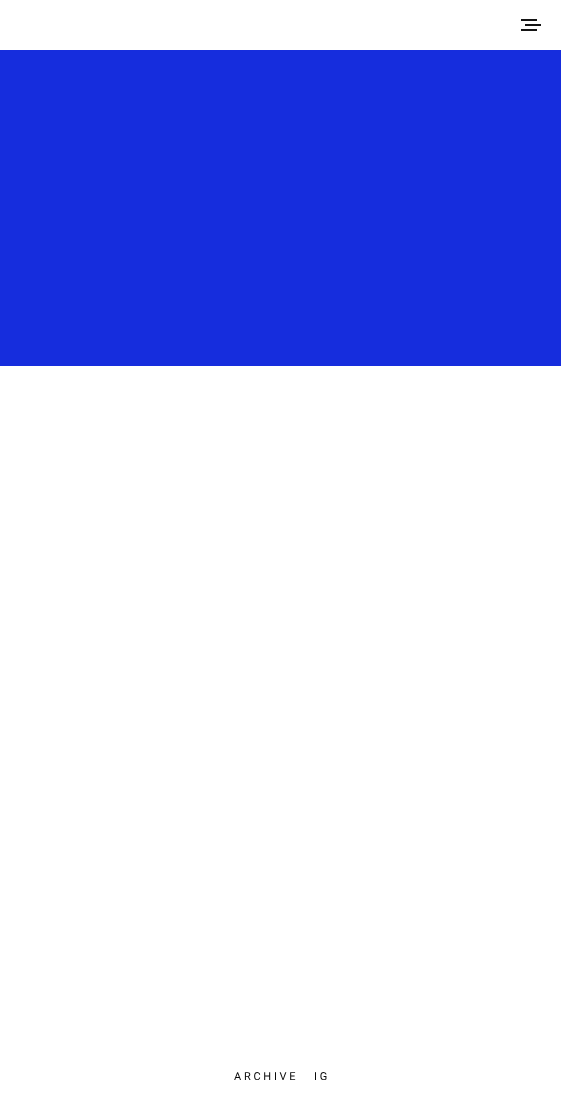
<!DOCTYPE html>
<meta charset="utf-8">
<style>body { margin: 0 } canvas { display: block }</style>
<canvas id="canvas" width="561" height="1105"></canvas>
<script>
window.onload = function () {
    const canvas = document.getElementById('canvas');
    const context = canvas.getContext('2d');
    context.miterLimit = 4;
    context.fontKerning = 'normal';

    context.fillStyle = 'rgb(255, 255, 255)';
    context.fillRect(0, 0, 561, 1105);
    context.fillStyle = 'rgb(21, 21, 21)';
    context.fillRect(521, 19, 16, 2);
    context.fillRect(525, 24, 16, 2);
    context.fillRect(521, 29, 16, 2);
    context.fillStyle = 'rgb(22, 45, 221)';
    context.fillRect(0, 50, 561, 316);
    context.font = '11px Roboto';
    context.fillStyle = 'rgb(10, 10, 10)';
    context.fillText('A R C H I V E', 234, 1080);
    context.fillText('I G', 314, 1080);
};
</script>
